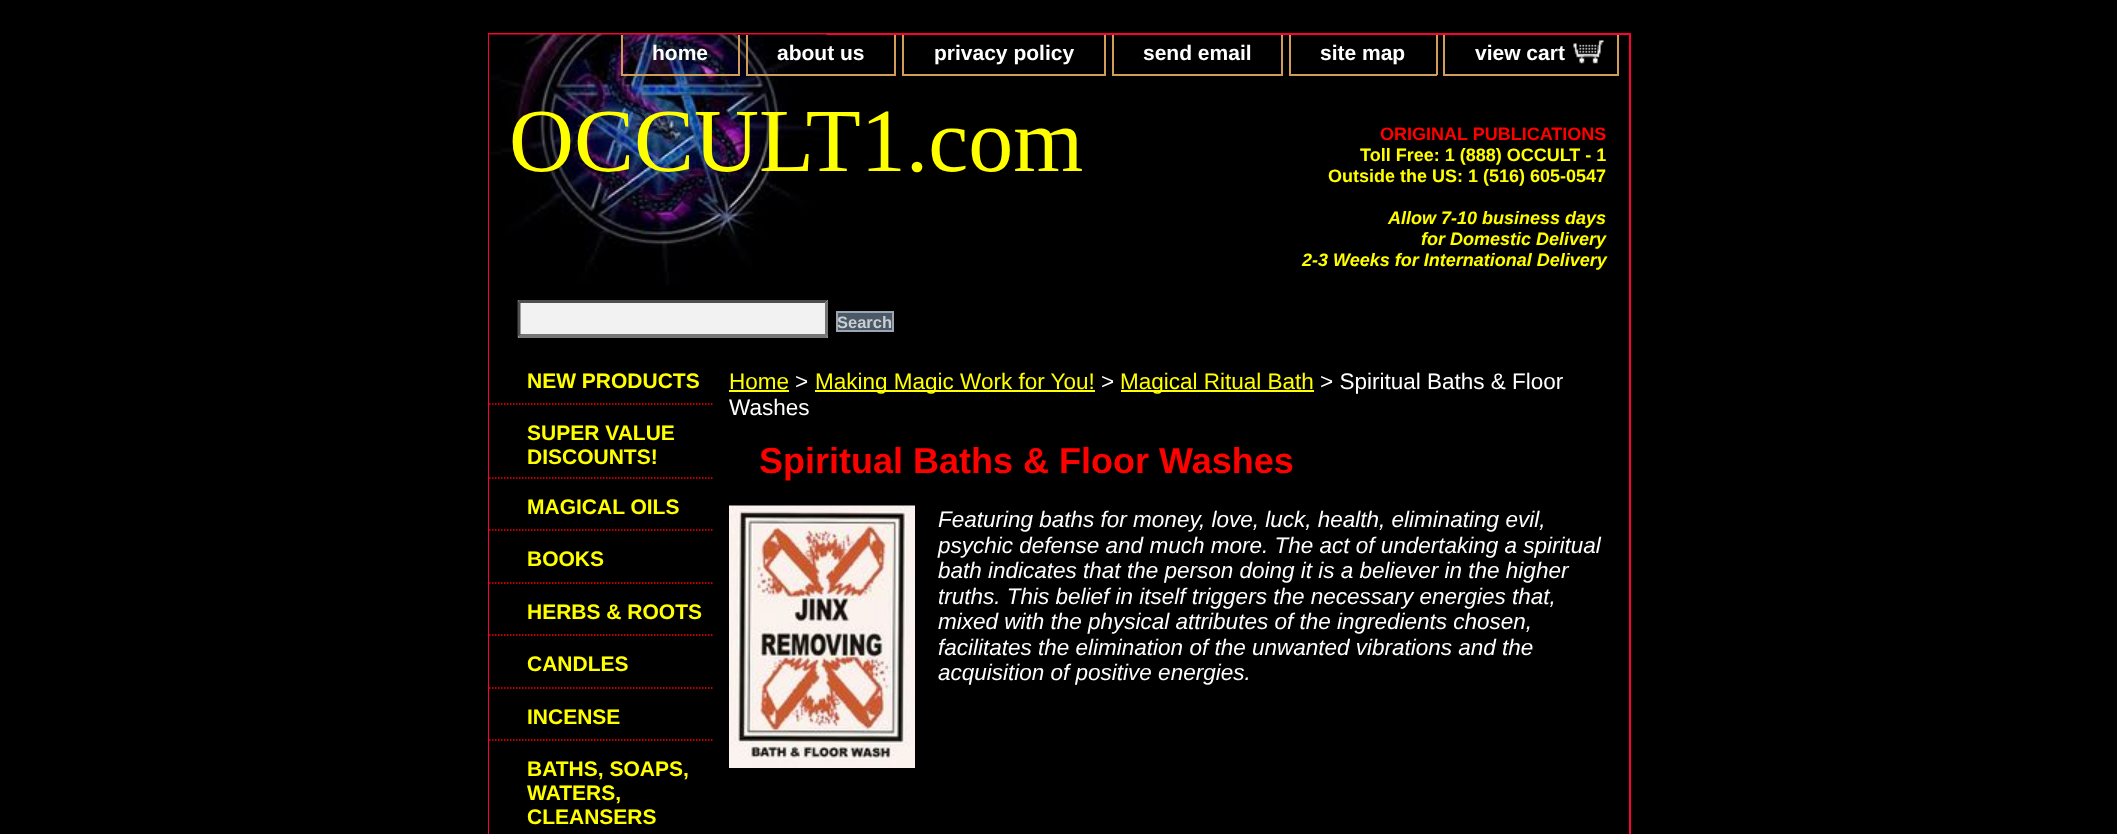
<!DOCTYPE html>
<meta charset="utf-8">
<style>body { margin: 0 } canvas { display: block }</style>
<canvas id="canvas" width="2117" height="834"></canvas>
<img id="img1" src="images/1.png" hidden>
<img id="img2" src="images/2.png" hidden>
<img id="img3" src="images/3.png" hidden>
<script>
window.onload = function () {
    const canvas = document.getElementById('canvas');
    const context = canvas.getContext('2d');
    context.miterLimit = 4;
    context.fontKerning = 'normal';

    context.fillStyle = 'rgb(0, 0, 0)';
    context.fillRect(0, 0, 2117, 834);
    context.strokeStyle = 'rgb(255, 0, 51)';
    context.lineWidth = 2;
    context.strokeRect(489, 34, 1141, 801);
    context.drawImage(document.getElementById('img1'), 489, 34, 338, 251);
    context.fillStyle = 'rgb(210, 157, 88)';
    context.fillRect(738, 35, 2, 40);
    context.fillRect(621, 74, 119, 2);
    context.fillRect(621, 35, 2, 40);
    context.fillRect(894, 35, 2, 40);
    context.fillRect(746, 74, 150, 2);
    context.fillRect(746, 35, 2, 40);
    context.fillRect(1104, 35, 2, 40);
    context.fillRect(902, 74, 204, 2);
    context.fillRect(902, 35, 2, 40);
    context.fillRect(1281, 35, 2, 40);
    context.fillRect(1112, 74, 171, 2);
    context.fillRect(1112, 35, 2, 40);
    context.fillRect(1436, 35, 2, 40);
    context.fillRect(1289, 74, 148, 2);
    context.fillRect(1289, 35, 2, 40);
    context.fillRect(1617, 35, 2, 40);
    context.fillRect(1443, 74, 176, 2);
    context.fillRect(1443, 35, 2, 40);
    context.drawImage(document.getElementById('img2'), 1573, 40, 31, 24);
    context.fillStyle = 'rgb(0, 0, 0)';
    context.fillRect(489, 285, 1, 549);
    context.fillStyle = 'rgb(242, 242, 242)';
    context.fillRect(518, 300, 310, 38);
    context.fillStyle = 'rgb(79, 79, 79)';
    context.beginPath();
    context.moveTo(518, 300);
    context.lineTo(828, 300);
    context.lineTo(825, 303);
    context.lineTo(520, 303);
    context.closePath();
    context.fill();
    context.fillStyle = 'rgb(118, 118, 118)';
    context.beginPath();
    context.moveTo(828, 300);
    context.lineTo(828, 337.5);
    context.lineTo(825, 334.5);
    context.lineTo(825, 303);
    context.closePath();
    context.fill();
    context.beginPath();
    context.moveTo(828, 338);
    context.lineTo(518, 338);
    context.lineTo(520, 334);
    context.lineTo(825, 334);
    context.closePath();
    context.fill();
    context.fillStyle = 'rgb(79, 79, 79)';
    context.beginPath();
    context.moveTo(517.5, 337.5);
    context.lineTo(517.5, 300);
    context.lineTo(520.5, 303);
    context.lineTo(520.5, 334.5);
    context.closePath();
    context.fill();
    context.fillStyle = 'rgb(75, 89, 103)';
    context.beginPath();
    context.rect(837, 312, 56, 19);
    context.fill();
    context.strokeStyle = 'rgb(156, 165, 178)';
    context.stroke();
    context.beginPath();
    context.moveTo(489, 404);
    context.lineTo(714, 404);
    context.strokeStyle = 'rgb(255, 0, 0)';
    context.lineWidth = 1.5;
    context.setLineDash([1.5, 1.5]);
    context.stroke();
    context.beginPath();
    context.moveTo(489, 478);
    context.lineTo(714, 478);
    context.stroke();
    context.beginPath();
    context.moveTo(489, 530);
    context.lineTo(714, 530);
    context.stroke();
    context.beginPath();
    context.moveTo(489, 583);
    context.lineTo(714, 583);
    context.stroke();
    context.beginPath();
    context.moveTo(489, 635);
    context.lineTo(714, 635);
    context.stroke();
    context.beginPath();
    context.moveTo(489, 688);
    context.lineTo(714, 688);
    context.stroke();
    context.beginPath();
    context.moveTo(489, 740);
    context.lineTo(714, 740);
    context.stroke();
    context.fillStyle = 'rgb(255, 255, 0)';
    context.fillRect(729, 390, 60, 2);
    context.fillRect(815, 390, 280, 2);
    context.fillRect(1121, 390, 193, 2);
    context.drawImage(document.getElementById('img3'), 729, 505, 186, 263);
    context.font = 'bold 21px Liberation Sans';
    context.fillStyle = 'rgb(255, 255, 255)';
    context.fillText('home', 652, 60);
    context.fillText('about us', 777, 60);
    context.fillText('privacy policy', 934, 60);
    context.fillText('send email', 1143, 60);
    context.fillText('site map', 1320, 60);
    context.fillText('view cart', 1475, 60);
    context.font = '90px Liberation Serif';
    context.fillStyle = 'rgb(255, 255, 0)';
    context.fillText('OCCULT1.com', 509, 171);
    context.font = 'bold 18px Liberation Sans';
    context.fillStyle = 'rgb(255, 0, 0)';
    context.fillText('ORIGINAL PUBLICATIONS', 1380, 140);
    context.fillStyle = 'rgb(255, 255, 0)';
    context.fillText('Toll Free: 1 (888) OCCULT - 1', 1360, 161);
    context.fillText('Outside the US: 1 (516) 605-0547', 1328, 182);
    context.font = 'italic bold 18px Liberation Sans';
    context.fillText('Allow 7-10 business days', 1388, 224);
    context.fillText('for Domestic Delivery', 1421, 245);
    context.fillText('2-3 Weeks for International Delivery', 1302, 266);
    context.font = 'bold 16.5px Liberation Sans';
    context.fillStyle = 'rgb(202, 206, 211)';
    context.fillText('Search', 837, 328);
    context.font = 'bold 21px Liberation Sans';
    context.fillStyle = 'rgb(255, 255, 0)';
    context.fillText('NEW PRODUCTS', 527, 388);
    context.fillText('SUPER VALUE', 527, 440);
    context.fillText('DISCOUNTS!', 527, 464);
    context.fillText('MAGICAL OILS', 527, 514);
    context.fillText('BOOKS', 527, 566);
    context.fillText('HERBS & ROOTS', 527, 619);
    context.fillText('CANDLES', 527, 671);
    context.fillText('INCENSE', 527, 724);
    context.fillText('BATHS, SOAPS,', 527, 776);
    context.fillText('WATERS,', 527, 800);
    context.fillText('CLEANSERS', 527, 824);
    context.font = '22.5px Liberation Sans';
    context.fillText('Home', 729, 389);
    context.fillStyle = 'rgb(255, 255, 255)';
    context.fillText('>', 795, 389);
    context.fillStyle = 'rgb(255, 255, 0)';
    context.fillText('Making Magic Work for You!', 815, 389);
    context.fillStyle = 'rgb(255, 255, 255)';
    context.fillText('>', 1101, 389);
    context.fillStyle = 'rgb(255, 255, 0)';
    context.fillText('Magical Ritual Bath', 1120, 389);
    context.fillStyle = 'rgb(255, 255, 255)';
    context.fillText('> Spiritual Baths & Floor', 1320, 389);
    context.fillText('Washes', 729, 415);
    context.font = 'bold 36px Liberation Sans';
    context.fillStyle = 'rgb(255, 0, 0)';
    context.fillText('Spiritual Baths & Floor Washes', 759, 473);
    context.font = 'italic 22.5px Liberation Sans';
    context.fillStyle = 'rgb(255, 255, 255)';
    context.fillText('Featuring baths for money, love, luck, health, eliminating evil,', 938, 527);
    context.fillText('psychic defense and much more. The act of undertaking a spiritual', 938, 553);
    context.fillText('bath indicates that the person doing it is a believer in the higher', 938, 578);
    context.fillText('truths. This belief in itself triggers the necessary energies that,', 938, 604);
    context.fillText('mixed with the physical attributes of the ingredients chosen,', 938, 629);
    context.fillText('facilitates the elimination of the unwanted vibrations and the', 938, 655);
    context.fillText('acquisition of positive energies.', 938, 680);
};
</script>
